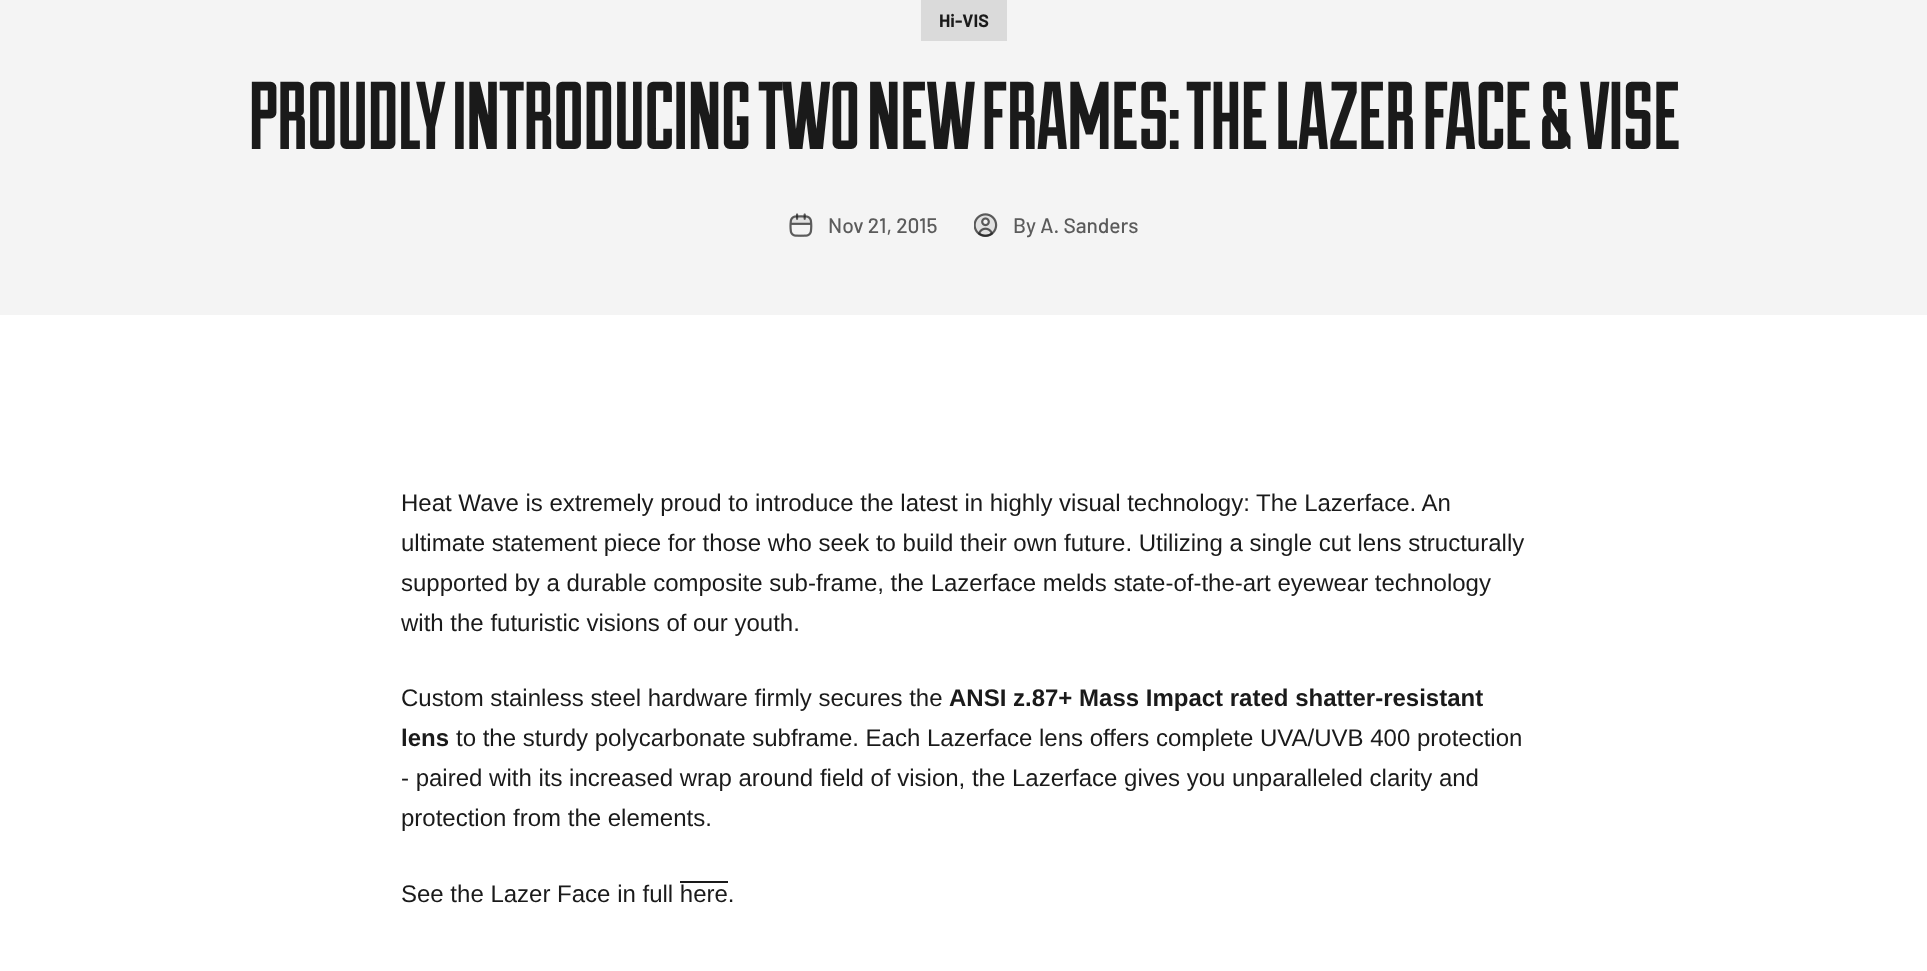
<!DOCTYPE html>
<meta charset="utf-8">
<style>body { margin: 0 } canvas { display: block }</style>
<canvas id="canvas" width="1927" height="971"></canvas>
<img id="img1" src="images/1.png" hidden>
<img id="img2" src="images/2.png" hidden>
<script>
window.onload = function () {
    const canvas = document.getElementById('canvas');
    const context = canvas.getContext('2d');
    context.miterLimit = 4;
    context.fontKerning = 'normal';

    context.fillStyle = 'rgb(255, 255, 255)';
    context.fillRect(0, 0, 1927, 971);
    context.fillStyle = 'rgb(244, 244, 244)';
    context.fillRect(0, 0, 1927, 315);
    context.fillStyle = 'rgb(218, 218, 218)';
    context.fillRect(921, 0, 86, 41);
    context.drawImage(document.getElementById('img1'), 789, 213, 24, 24);
    context.drawImage(document.getElementById('img2'), 974, 213, 24, 24);
    context.fillStyle = 'rgb(26, 26, 26)';
    context.fillRect(680, 881, 48, 2);
    context.font = 'bold 18px Barlow';
    context.fillText('Hi-VIS', 939, 27);
    context.letterSpacing = '-1.92px';
    context.font = '96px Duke';
    context.fillText('PROUDLY INTRODUCING TWO NEW FRAMES: THE LAZER FACE & VISE', 248, 149);
    context.letterSpacing = '0px';
    context.font = '500 21px Barlow';
    context.fillStyle = 'rgb(91, 91, 91)';
    context.fillText('Nov 21, 2015', 828, 233);
    context.fillText('By A. Sanders', 1013, 233);
    context.font = '24px Liberation Sans';
    context.fillStyle = 'rgb(26, 26, 26)';
    context.fillText('Heat Wave is extremely proud to introduce the latest in highly visual technology: The Lazerface. An', 401, 511);
    context.fillText('ultimate statement piece for those who seek to build their own future. Utilizing a single cut lens structurally', 401, 551);
    context.fillText('supported by a durable composite sub-frame, the Lazerface melds state-of-the-art eyewear technology', 401, 591);
    context.fillText('with the futuristic visions of our youth.', 401, 631);
    context.fillText('Custom stainless steel hardware firmly secures the', 401, 706);
    context.font = 'bold 24px Liberation Sans';
    context.fillText('ANSI z.87+ Mass Impact rated shatter-resistant', 949, 706);
    context.fillText('lens', 401, 746);
    context.font = '24px Liberation Sans';
    context.fillText('to the sturdy polycarbonate subframe. Each Lazerface lens offers complete UVA/UVB 400 protection', 456, 746);
    context.fillText('- paired with its increased wrap around field of vision, the Lazerface gives you unparalleled clarity and', 401, 786);
    context.fillText('protection from the elements.', 401, 826);
    context.fillText('See the Lazer Face in full here.', 401, 902);
};
</script>
